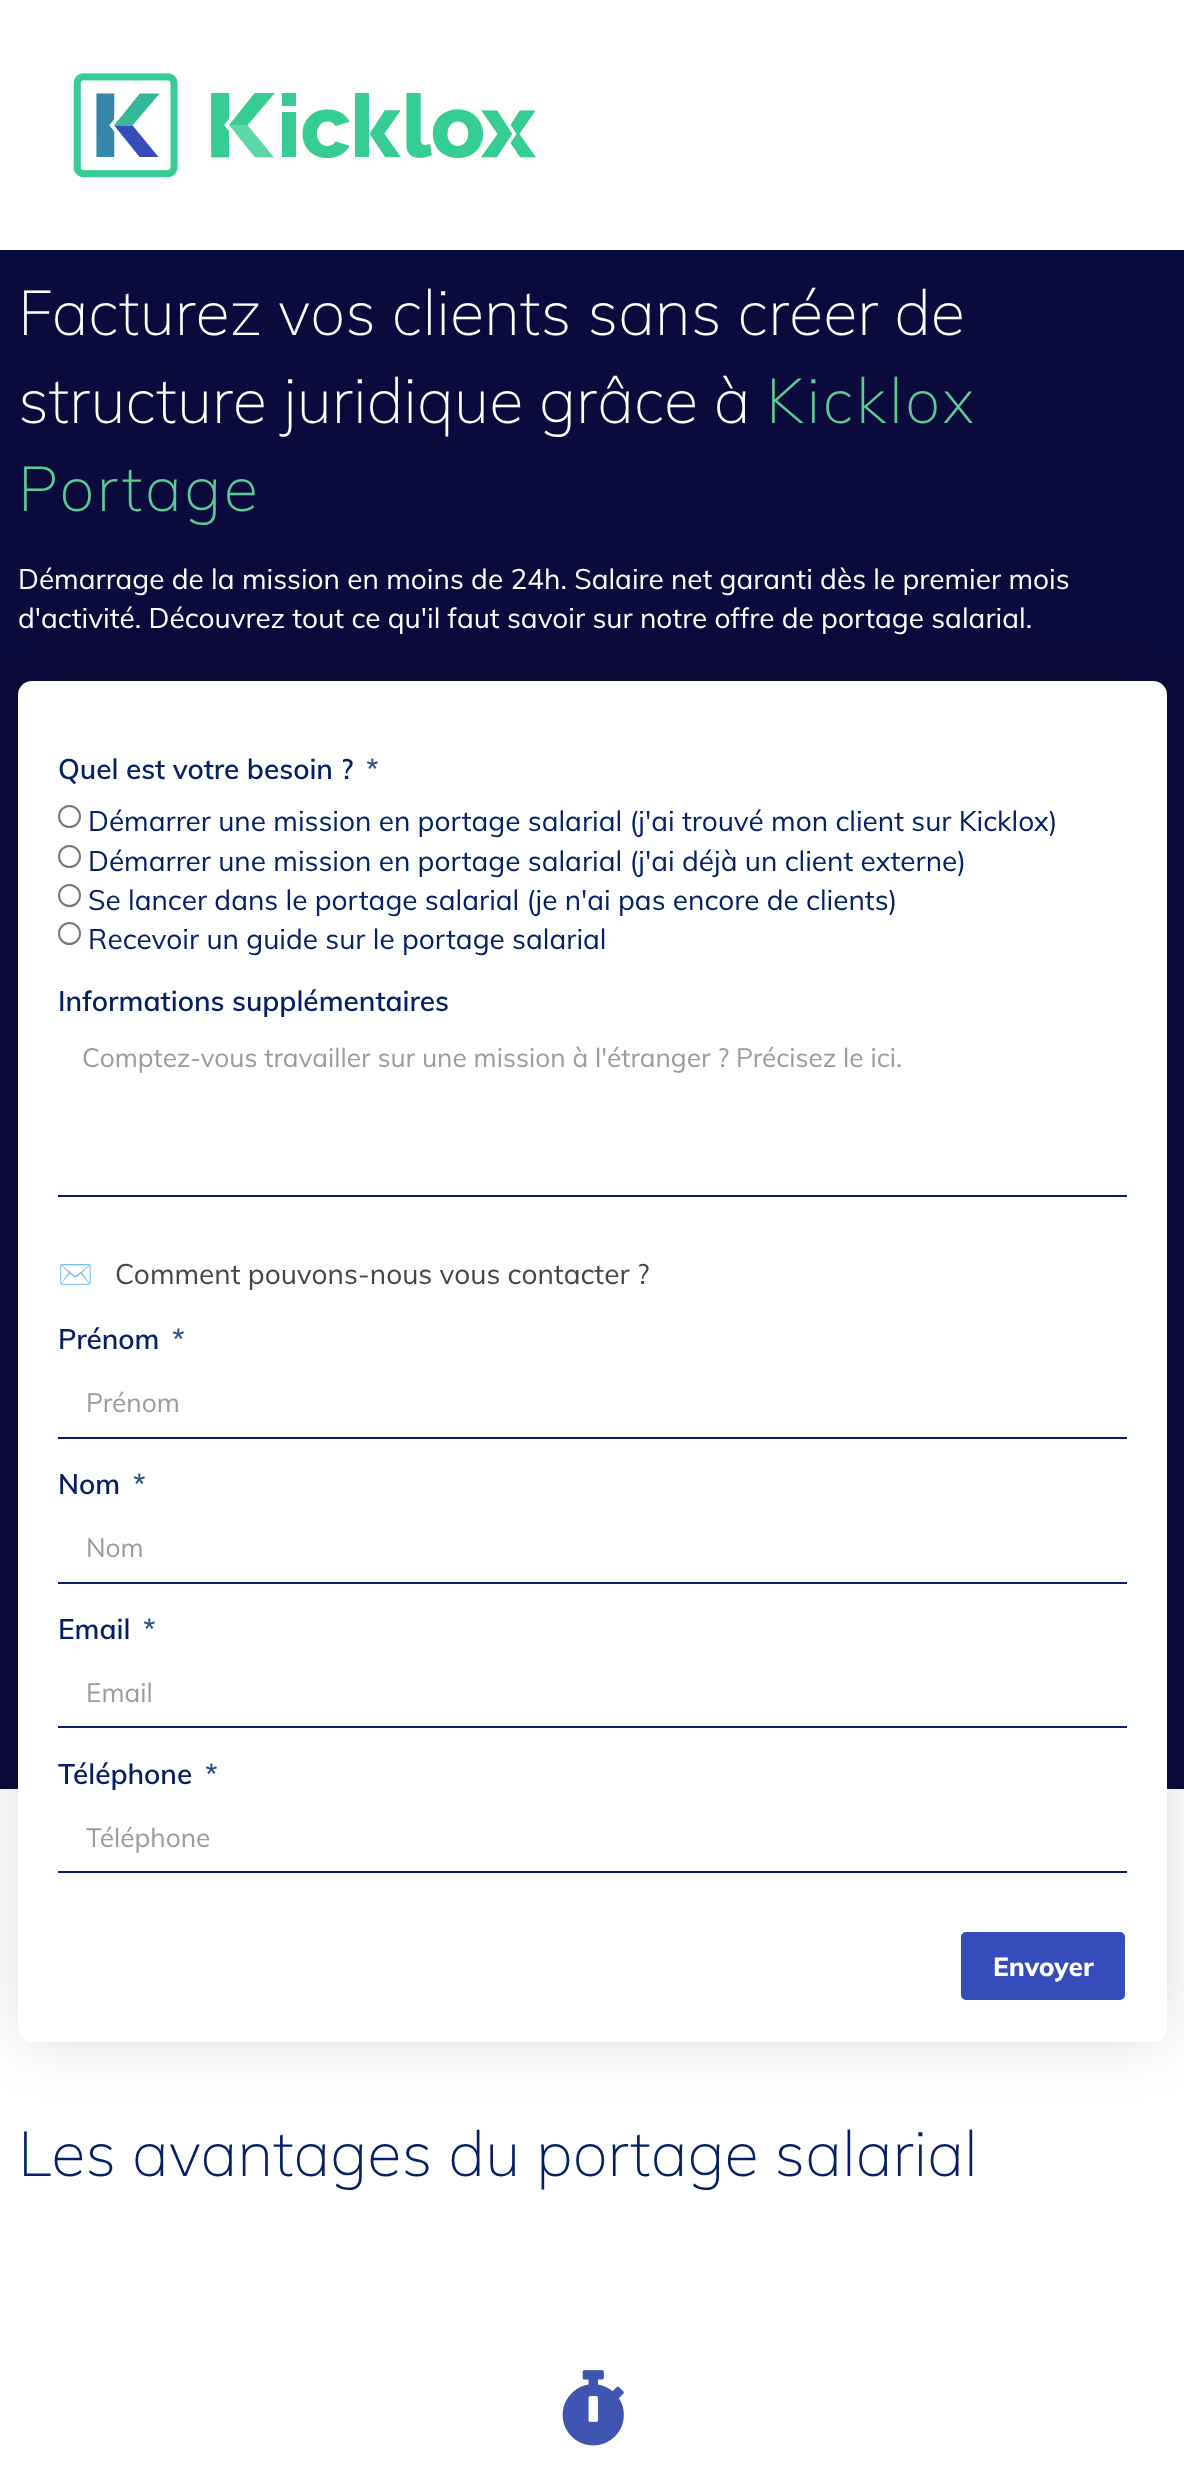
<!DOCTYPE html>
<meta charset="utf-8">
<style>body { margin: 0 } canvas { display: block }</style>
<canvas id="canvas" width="1184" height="2468"></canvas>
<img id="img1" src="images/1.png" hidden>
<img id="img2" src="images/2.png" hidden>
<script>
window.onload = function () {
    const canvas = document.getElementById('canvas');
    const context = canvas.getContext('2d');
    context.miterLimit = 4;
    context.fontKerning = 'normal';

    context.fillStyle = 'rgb(255, 255, 255)';
    context.fillRect(0, 0, 1184, 2468);
    context.drawImage(document.getElementById('img1'), 73, 73, 463, 105);
    context.fillStyle = 'rgb(11, 10, 60)';
    context.fillRect(0, 250, 1184, 1539);
    context.fillStyle = 'rgba(0, 0, 0, 0.13)';
    context.filter = 'blur(32.5px)';
    context.beginPath();
    context.roundRect(18, 681, 1149, 1361, 14);
    context.fill();
    context.filter = 'none';
    context.fillStyle = 'rgb(255, 255, 255)';
    context.beginPath();
    context.roundRect(18, 681, 1149, 1361, 14);
    context.fill();
    context.beginPath();
    context.arc(69.5, 816.5, 10.5, 0, 2 * Math.PI);
    context.strokeStyle = 'rgb(118, 118, 118)';
    context.lineWidth = 2;
    context.stroke();
    context.beginPath();
    context.arc(69.5, 856.5, 10.5, 0, 2 * Math.PI);
    context.stroke();
    context.beginPath();
    context.arc(69.5, 895.5, 10.5, 0, 2 * Math.PI);
    context.stroke();
    context.beginPath();
    context.arc(69.5, 933.5, 10.5, 0, 2 * Math.PI);
    context.stroke();
    context.fillStyle = 'rgb(2, 32, 99)';
    context.fillRect(58, 1195, 1069, 2);
    context.fillRect(58, 1437, 1069, 2);
    context.fillRect(58, 1582, 1069, 2);
    context.fillRect(58, 1726, 1069, 2);
    context.fillRect(58, 1871, 1069, 2);
    context.fillStyle = 'rgb(54, 76, 187)';
    context.beginPath();
    context.roundRect(960, 1931, 166, 70, 6);
    context.fill();
    context.strokeStyle = 'rgb(255, 255, 255)';
    context.stroke();
    context.drawImage(document.getElementById('img2'), 562, 2370, 62, 76);
    context.font = '200 63px Mulish';
    context.fillStyle = 'rgb(255, 255, 255)';
    context.fillText('Facturez vos clients sans créer de', 18, 335);
    context.fillText('structure juridique grâce à', 18, 423);
    context.letterSpacing = '2.5px';
    context.fillStyle = 'rgb(92, 204, 147)';
    context.fillText('Kicklox', 766, 423);
    context.fillText('Portage', 18, 511);
    context.letterSpacing = '0px';
    context.font = '28px Muli';
    context.fillStyle = 'rgb(255, 255, 255)';
    context.fillText('Démarrage de la mission en moins de 24h. Salaire net garanti dès le premier mois', 18, 589);
    context.fillText('d\'activité. Découvrez tout ce qu\'il faut savoir sur notre offre de portage salarial.', 18, 628);
    context.font = '600 28px Muli';
    context.fillStyle = 'rgb(2, 32, 99)';
    context.fillText('Quel est votre besoin ?', 58, 779);
    context.fillStyle = 'rgb(38, 80, 135)';
    context.fillText('*', 366, 779);
    context.font = '28px Muli';
    context.fillStyle = 'rgb(2, 32, 99)';
    context.fillText('Démarrer une mission en portage salarial (j\'ai trouvé mon client sur Kicklox)', 88, 831);
    context.fillText('Démarrer une mission en portage salarial (j\'ai déjà un client externe)', 88, 871);
    context.fillText('Se lancer dans le portage salarial (je n\'ai pas encore de clients)', 88, 910);
    context.fillText('Recevoir un guide sur le portage salarial', 88, 949);
    context.font = '600 28px Muli';
    context.fillText('Informations supplémentaires', 58, 1011);
    context.font = '26.25px Muli';
    context.fillStyle = 'rgb(152, 155, 159)';
    context.fillText('Comptez-vous travailler sur une mission à l\'étranger ? Précisez le ici.', 82, 1067);
    context.font = '28px Noto Color Emoji';
    context.fillStyle = 'rgb(69, 69, 69)';
    context.fillText('✉️', 58, 1284);
    context.font = '28px Muli';
    context.fillText('Comment pouvons-nous vous contacter ?', 115, 1284);
    context.font = '600 28px Muli';
    context.fillStyle = 'rgb(2, 32, 99)';
    context.fillText('Prénom', 58, 1349);
    context.fillStyle = 'rgb(38, 80, 135)';
    context.fillText('*', 172, 1349);
    context.font = '26.25px Muli';
    context.fillStyle = 'rgb(152, 155, 159)';
    context.fillText('Prénom', 86, 1412);
    context.font = '600 28px Muli';
    context.fillStyle = 'rgb(2, 32, 99)';
    context.fillText('Nom', 58, 1494);
    context.fillStyle = 'rgb(38, 80, 135)';
    context.fillText('*', 133, 1494);
    context.font = '26.25px Muli';
    context.fillStyle = 'rgb(152, 155, 159)';
    context.fillText('Nom', 86, 1557);
    context.font = '600 28px Muli';
    context.fillStyle = 'rgb(2, 32, 99)';
    context.fillText('Email', 58, 1639);
    context.fillStyle = 'rgb(38, 80, 135)';
    context.fillText('*', 143, 1639);
    context.font = '26.25px Muli';
    context.fillStyle = 'rgb(152, 155, 159)';
    context.fillText('Email', 86, 1702);
    context.font = '600 28px Muli';
    context.fillStyle = 'rgb(2, 32, 99)';
    context.fillText('Téléphone', 58, 1784);
    context.fillStyle = 'rgb(38, 80, 135)';
    context.fillText('*', 205, 1784);
    context.font = '26.25px Muli';
    context.fillStyle = 'rgb(152, 155, 159)';
    context.fillText('Téléphone', 86, 1847);
    context.font = '800 26.25px Mulish';
    context.fillStyle = 'rgb(255, 255, 255)';
    context.fillText('Envoyer', 993, 1976);
    context.font = '200 63px Mulish';
    context.fillStyle = 'rgb(2, 32, 99)';
    context.fillText('Les avantages du portage salarial', 18, 2176);
};
</script>
